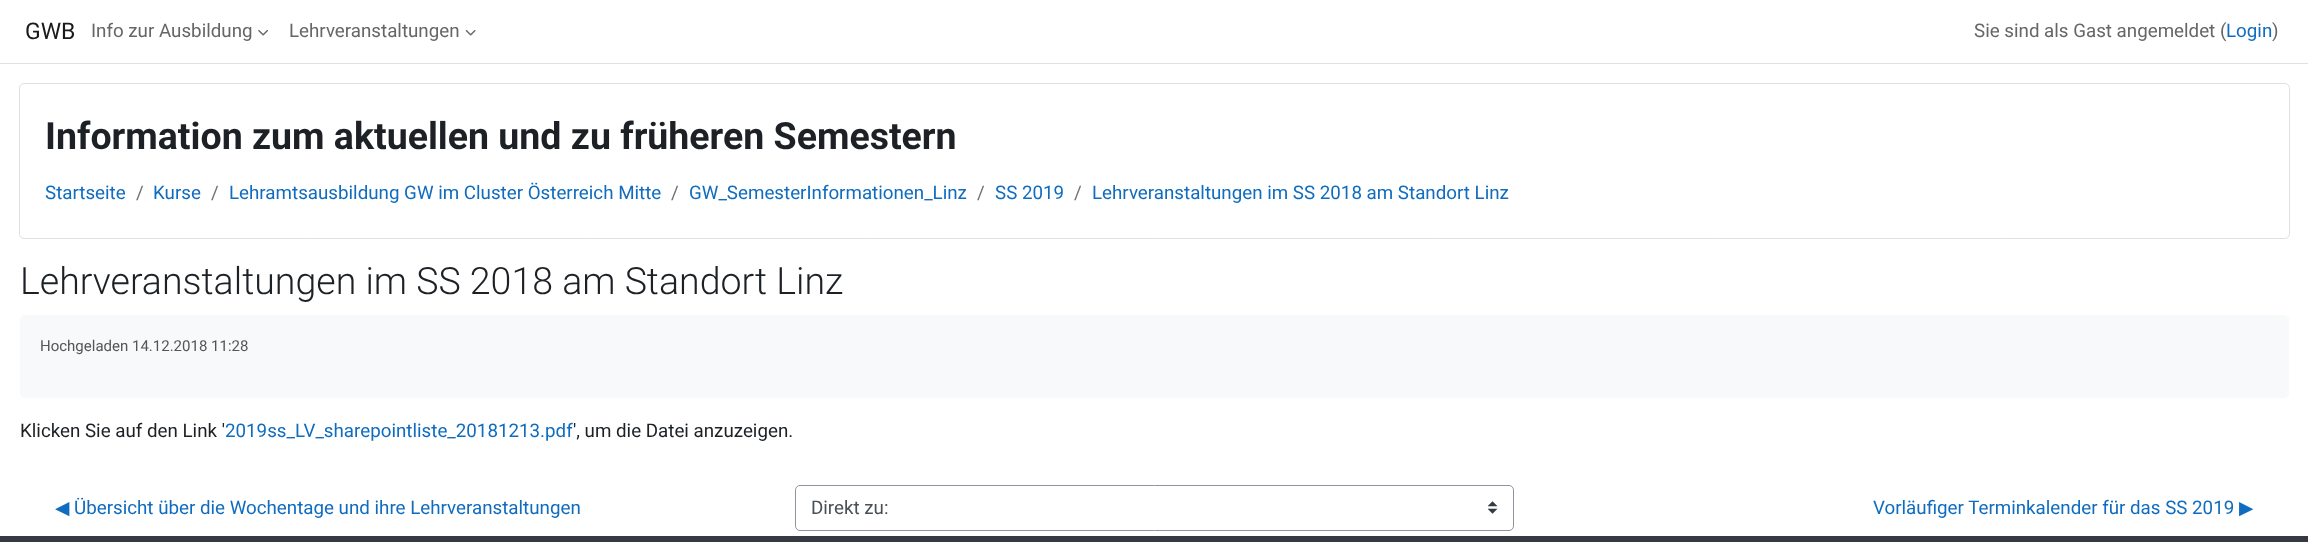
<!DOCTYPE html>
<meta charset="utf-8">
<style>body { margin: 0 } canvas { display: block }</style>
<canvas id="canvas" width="2308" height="542"></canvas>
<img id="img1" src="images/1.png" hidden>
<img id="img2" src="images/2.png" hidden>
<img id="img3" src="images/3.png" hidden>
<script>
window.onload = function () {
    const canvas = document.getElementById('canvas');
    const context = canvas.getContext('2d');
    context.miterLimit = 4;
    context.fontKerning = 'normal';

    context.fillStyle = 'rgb(255, 255, 255)';
    context.fillRect(0, 0, 2308, 542);
    context.fillStyle = 'rgb(222, 226, 230)';
    context.fillRect(0, 63, 2308, 1);
    context.drawImage(document.getElementById('img1'), 258, 30, 10, 6);
    context.drawImage(document.getElementById('img2'), 465, 30, 11, 6);
    context.beginPath();
    context.roundRect(19.5, 83.5, 2270, 155, 4.5);
    context.strokeStyle = 'rgb(223, 223, 223)';
    context.stroke();
    context.fillStyle = 'rgb(248, 249, 250)';
    context.beginPath();
    context.roundRect(20, 315, 2269, 83, 5);
    context.fill();
    context.drawImage(document.getElementById('img3'), 1488, 501, 10, 13);
    context.beginPath();
    context.roundRect(795.5, 485.5, 718, 45, 4.5);
    context.strokeStyle = 'rgb(143, 149, 158)';
    context.stroke();
    context.fillStyle = 'rgb(52, 58, 64)';
    context.fillRect(0, 536, 2308, 6);
    context.font = '23px Roboto';
    context.fillStyle = 'rgb(26, 26, 26)';
    context.fillText('GWB', 25, 39);
    context.font = '18.75px Roboto';
    context.fillStyle = 'rgb(102, 102, 102)';
    context.fillText('Info zur Ausbildung', 91, 37);
    context.fillText('Lehrveranstaltungen', 289, 37);
    context.fillText('Sie sind als Gast angemeldet (', 1974, 37);
    context.fillStyle = 'rgb(15, 108, 191)';
    context.fillText('Login', 2226, 37);
    context.fillStyle = 'rgb(102, 102, 102)';
    context.fillText(')', 2272, 37);
    context.font = 'bold 37.5px Roboto';
    context.fillStyle = 'rgb(29, 33, 37)';
    context.fillText('Information zum aktuellen und zu früheren Semestern', 45, 149);
    context.font = '18.75px Roboto';
    context.fillStyle = 'rgb(15, 108, 191)';
    context.fillText('Startseite', 45, 199);
    context.fillStyle = 'rgb(106, 115, 123)';
    context.fillText('/', 136, 199);
    context.fillStyle = 'rgb(15, 108, 191)';
    context.fillText('Kurse', 153, 199);
    context.fillStyle = 'rgb(106, 115, 123)';
    context.fillText('/', 211, 199);
    context.fillStyle = 'rgb(15, 108, 191)';
    context.fillText('Lehramtsausbildung GW im Cluster Österreich Mitte', 229, 199);
    context.fillStyle = 'rgb(106, 115, 123)';
    context.fillText('/', 671, 199);
    context.fillStyle = 'rgb(15, 108, 191)';
    context.fillText('GW_SemesterInformationen_Linz', 689, 199);
    context.fillStyle = 'rgb(106, 115, 123)';
    context.fillText('/', 977, 199);
    context.fillStyle = 'rgb(15, 108, 191)';
    context.fillText('SS 2019', 995, 199);
    context.fillStyle = 'rgb(106, 115, 123)';
    context.fillText('/', 1074, 199);
    context.fillStyle = 'rgb(15, 108, 191)';
    context.fillText('Lehrveranstaltungen im SS 2018 am Standort Linz', 1092, 199);
    context.font = '300 37.5px Roboto';
    context.fillStyle = 'rgb(29, 33, 37)';
    context.fillText('Lehrveranstaltungen im SS 2018 am Standort Linz', 20, 294);
    context.font = '15px Roboto';
    context.fillStyle = 'rgb(85, 85, 85)';
    context.fillText('Hochgeladen 14.12.2018 11:28', 40, 351);
    context.font = '18.75px Roboto';
    context.fillStyle = 'rgb(29, 33, 37)';
    context.fillText('Klicken Sie auf den Link \'', 20, 437);
    context.fillStyle = 'rgb(15, 108, 191)';
    context.fillText('2019ss_LV_sharepointliste_20181213.pdf', 225, 437);
    context.fillStyle = 'rgb(29, 33, 37)';
    context.fillText('\', um die Datei anzuzeigen.', 573, 437);
    context.font = '18.75px DejaVu Sans';
    context.fillStyle = 'rgb(15, 108, 191)';
    context.fillText('◀︎', 55, 514);
    context.font = '18.75px Roboto';
    context.fillText('Übersicht über die Wochentage und ihre Lehrveranstaltungen', 74, 514);
    context.fillStyle = 'rgb(73, 80, 87)';
    context.fillText('Direkt zu:', 811, 514);
    context.fillStyle = 'rgb(15, 108, 191)';
    context.fillText('Vorläufiger Terminkalender für das SS 2019', 1873, 514);
    context.font = '18.75px DejaVu Sans';
    context.fillText('▶︎', 2239, 514);
};
</script>
